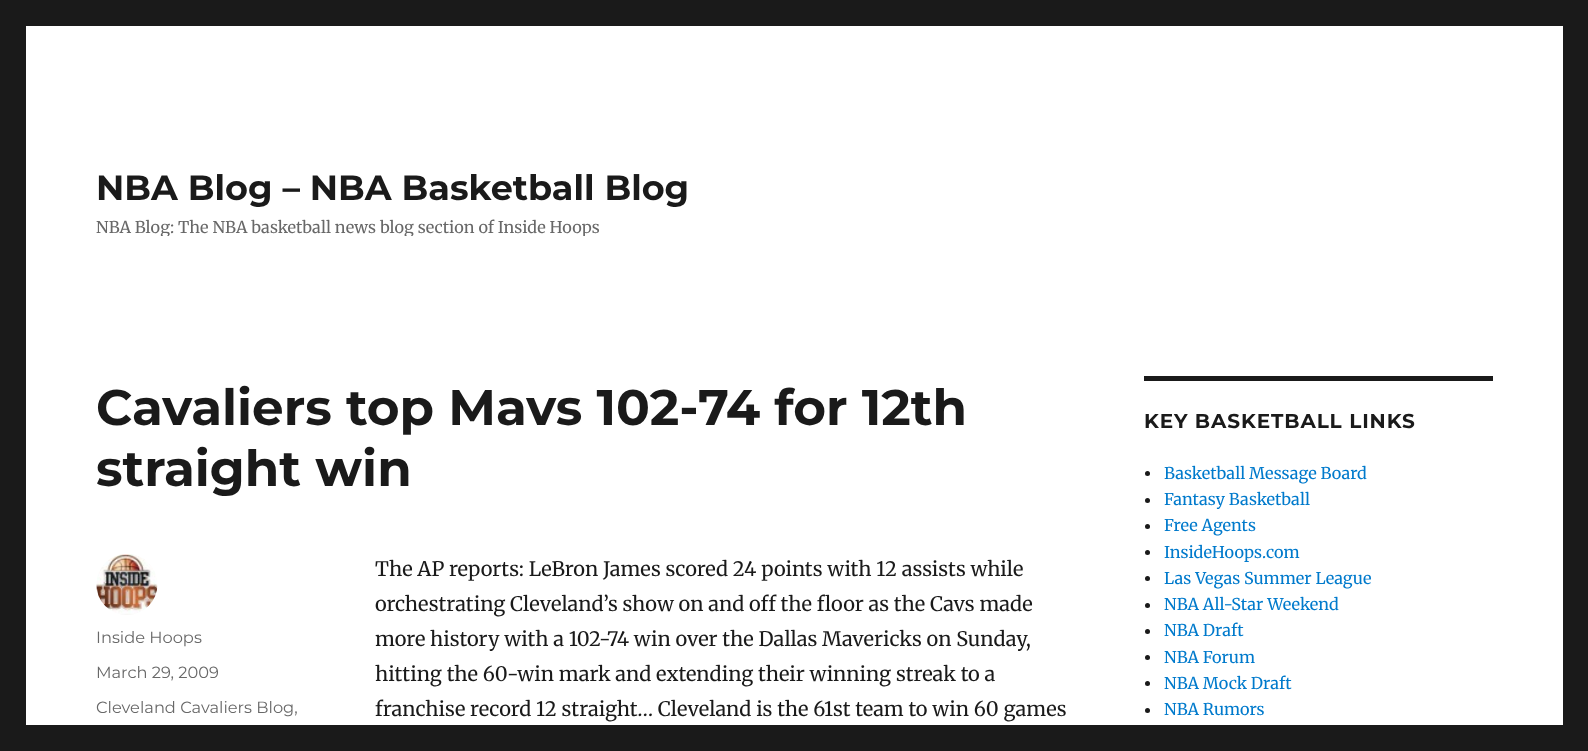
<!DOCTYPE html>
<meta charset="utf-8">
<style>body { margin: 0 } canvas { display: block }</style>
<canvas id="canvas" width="1588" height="751"></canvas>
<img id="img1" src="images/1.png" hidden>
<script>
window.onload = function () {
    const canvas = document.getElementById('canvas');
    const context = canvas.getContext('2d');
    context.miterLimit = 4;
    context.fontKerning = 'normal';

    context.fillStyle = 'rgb(26, 26, 26)';
    context.fillRect(0, 0, 1588, 751);
    context.fillStyle = 'rgb(255, 255, 255)';
    context.fillRect(26, 26, 1537, 699);
    context.drawImage(document.getElementById('img1'), 96, 554, 62, 61);
    context.fillStyle = 'rgb(26, 26, 26)';
    context.fillRect(1144, 376, 349, 5);
    context.beginPath();
    context.arc(1147.5, 473.5, 2.5, 0, 2 * Math.PI);
    context.fill();
    context.beginPath();
    context.arc(1147.5, 500.5, 2.5, 0, 2 * Math.PI);
    context.fill();
    context.beginPath();
    context.arc(1147.5, 526.5, 2.5, 0, 2 * Math.PI);
    context.fill();
    context.beginPath();
    context.arc(1147.5, 552.5, 2.5, 0, 2 * Math.PI);
    context.fill();
    context.beginPath();
    context.arc(1147.5, 578.5, 2.5, 0, 2 * Math.PI);
    context.fill();
    context.beginPath();
    context.arc(1147.5, 605.5, 2.5, 0, 2 * Math.PI);
    context.fill();
    context.beginPath();
    context.arc(1147.5, 631.5, 2.5, 0, 2 * Math.PI);
    context.fill();
    context.beginPath();
    context.arc(1147.5, 657.5, 2.5, 0, 2 * Math.PI);
    context.fill();
    context.beginPath();
    context.arc(1147.5, 683.5, 2.5, 0, 2 * Math.PI);
    context.fill();
    context.beginPath();
    context.arc(1147.5, 710.5, 2.5, 0, 2 * Math.PI);
    context.fill();
    context.font = 'bold 35px Montserrat';
    context.fillText('NBA Blog – NBA Basketball Blog', 96, 200);
    context.save();
    context.beginPath();
    context.rect(96, 166, 593, 70);
    context.clip();
    context.font = '16.25px Merriweather';
    context.fillStyle = 'rgb(104, 104, 104)';
    context.fillText('NBA Blog: The NBA basketball news blog section of Inside Hoops', 96, 233);
    context.restore();
    context.font = 'bold 50px Montserrat';
    context.fillText('Cavaliers top Mavs 102-74 for 12th', 96, 425);
    context.fillText('straight win', 96, 486);
    context.font = '16.25px Montserrat';
    context.fillStyle = 'rgb(104, 104, 104)';
    context.fillText('Inside Hoops', 96, 643);
    context.fillText('March 29, 2009', 96, 678);
    context.fillText('Cleveland Cavaliers Blog,', 96, 713);
    context.font = '20px Merriweather';
    context.fillStyle = 'rgb(26, 26, 26)';
    context.fillText('The AP reports: LeBron James scored 24 points with 12 assists while', 375, 576);
    context.fillText('orchestrating Cleveland’s show on and off the floor as the Cavs made', 375, 611);
    context.fillText('more history with a 102-74 win over the Dallas Mavericks on Sunday,', 375, 646);
    context.fillText('hitting the 60-win mark and extending their winning streak to a', 375, 681);
    context.fillText('franchise record 12 straight… Cleveland is the 61st team to win 60 games', 375, 716);
    context.letterSpacing = '0.9px';
    context.font = 'bold 20px Montserrat';
    context.fillText('KEY BASKETBALL LINKS', 1144, 428);
    context.letterSpacing = '0px';
    context.font = '16.25px Merriweather';
    context.fillStyle = 'rgb(0, 122, 204)';
    context.fillText('Basketball Message Board', 1164, 479);
    context.fillText('Fantasy Basketball', 1164, 505);
    context.fillText('Free Agents', 1164, 531);
    context.fillText('InsideHoops.com', 1164, 558);
    context.fillText('Las Vegas Summer League', 1164, 584);
    context.fillText('NBA All-Star Weekend', 1164, 610);
    context.fillText('NBA Draft', 1164, 636);
    context.fillText('NBA Forum', 1164, 663);
    context.fillText('NBA Mock Draft', 1164, 689);
    context.fillText('NBA Rumors', 1164, 715);
};
</script>
